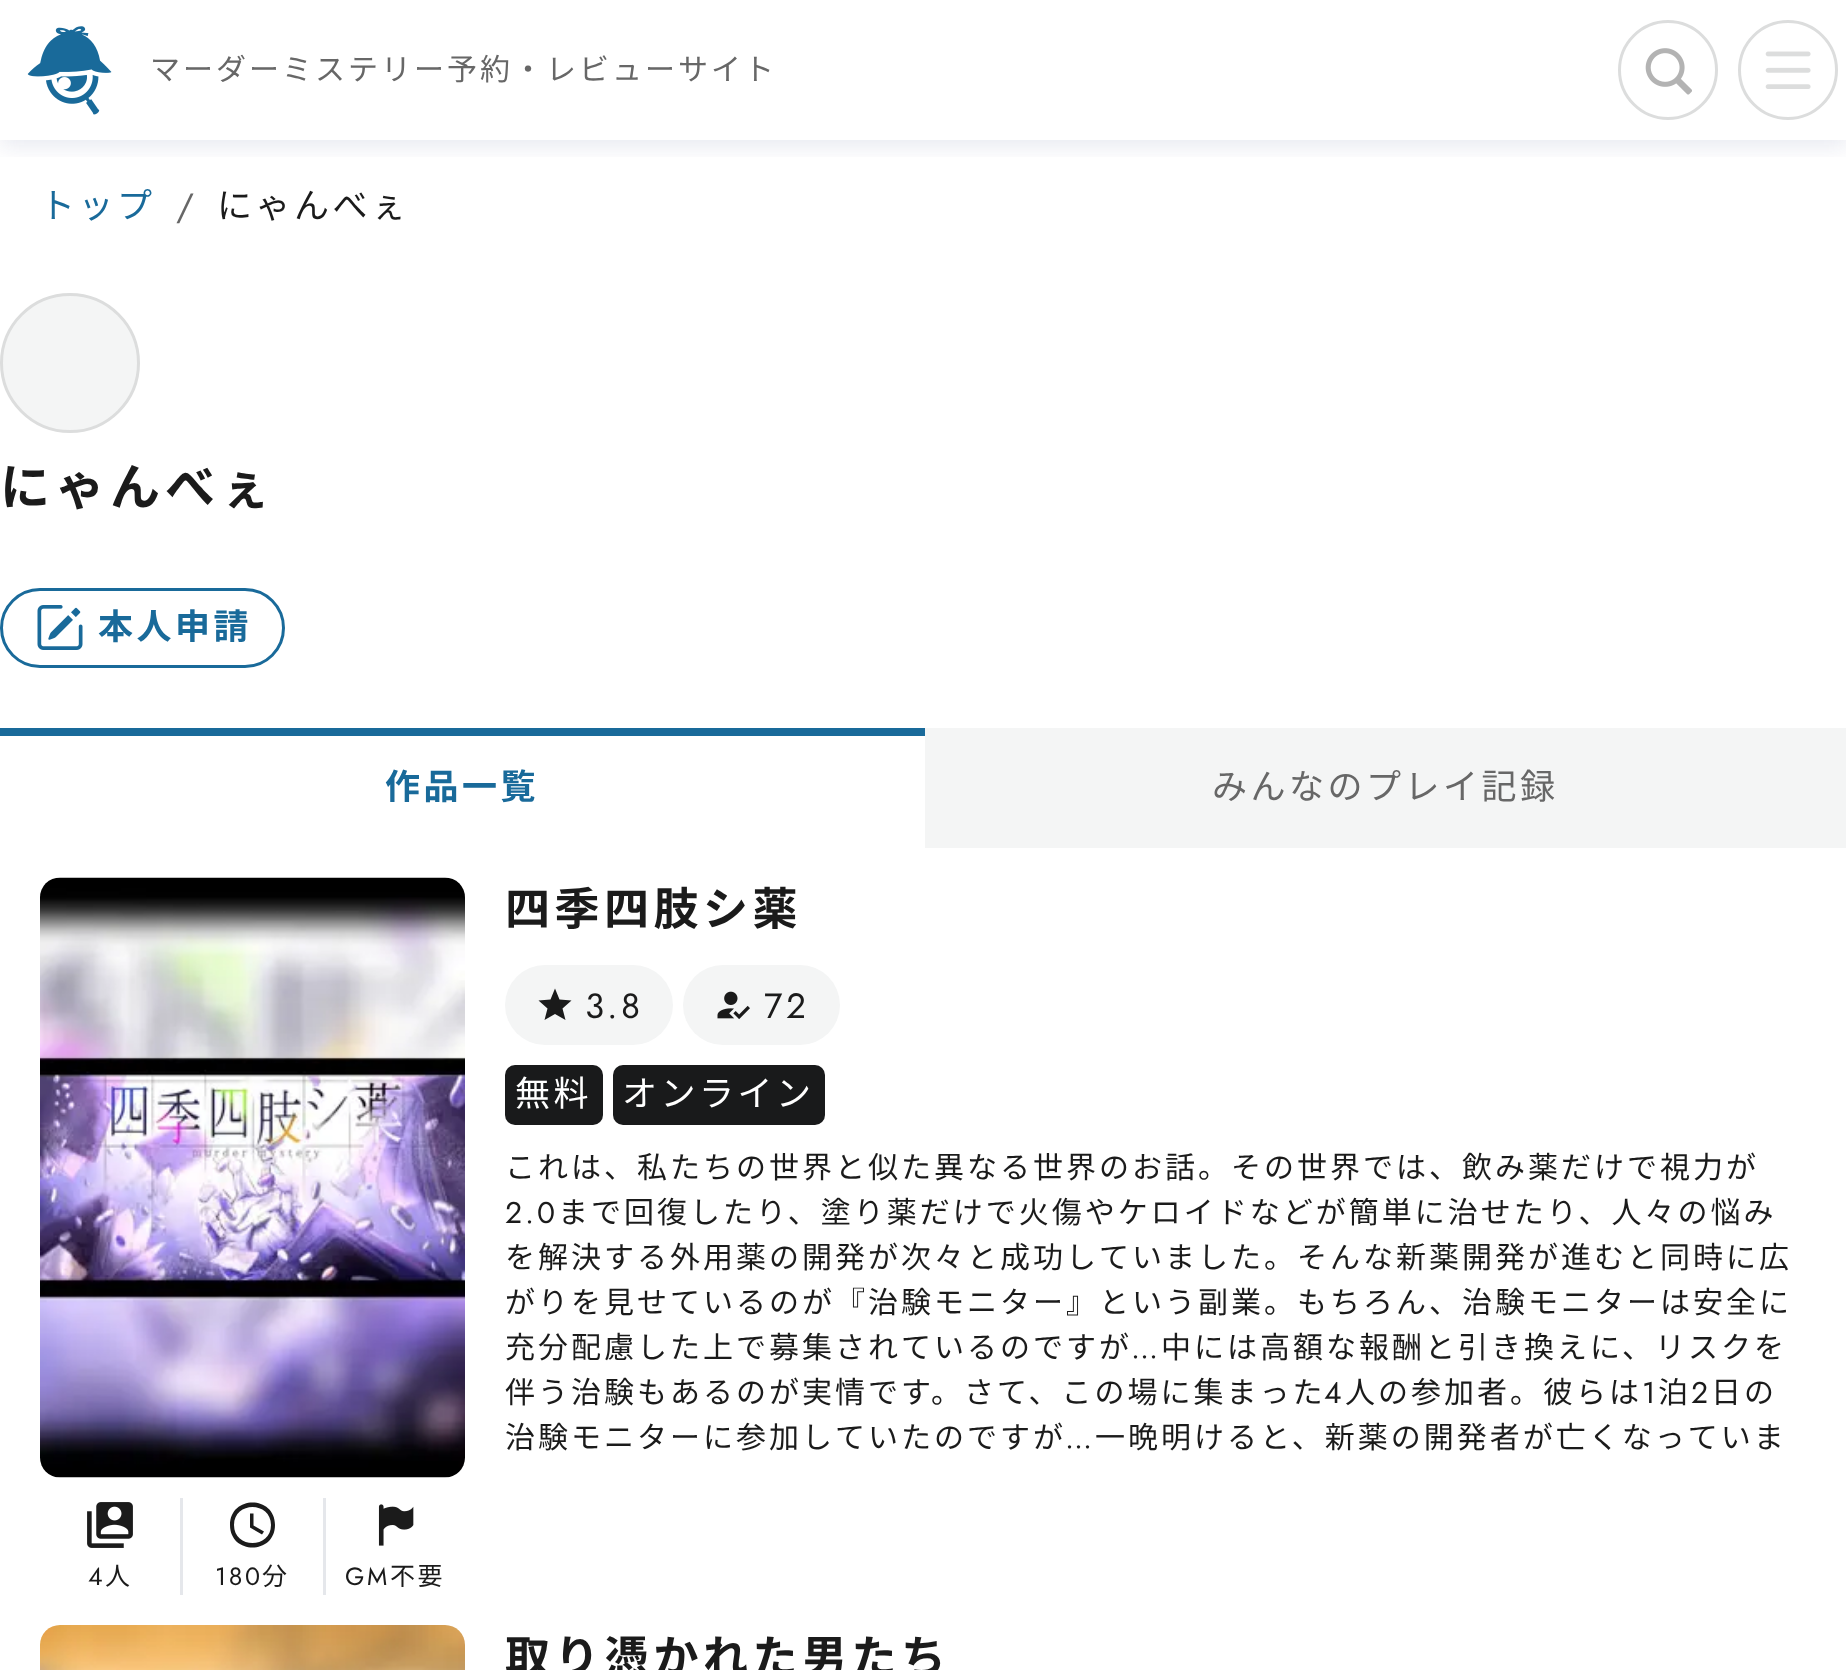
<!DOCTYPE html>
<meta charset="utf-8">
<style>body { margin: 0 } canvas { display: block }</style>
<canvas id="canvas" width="1846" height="1670"></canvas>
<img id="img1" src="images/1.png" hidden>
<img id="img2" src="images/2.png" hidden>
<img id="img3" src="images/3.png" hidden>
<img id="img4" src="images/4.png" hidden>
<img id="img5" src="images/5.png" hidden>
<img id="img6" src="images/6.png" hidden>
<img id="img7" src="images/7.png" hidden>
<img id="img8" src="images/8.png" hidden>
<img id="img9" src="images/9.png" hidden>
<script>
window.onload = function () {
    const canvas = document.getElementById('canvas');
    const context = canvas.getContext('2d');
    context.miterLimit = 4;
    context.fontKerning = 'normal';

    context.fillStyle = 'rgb(255, 255, 255)';
    context.fillRect(0, 0, 1846, 1670);
    context.save();
    context.beginPath();
    context.rect(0, 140, 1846, 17);
    context.clip();
    context.fillStyle = 'rgba(38, 56, 124, 0.12)';
    context.filter = 'blur(12.5px)';
    context.beginPath();
    context.rect(0, 5, 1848, 140);
    context.fill();
    context.filter = 'none';
    context.restore();
    context.drawImage(document.getElementById('img1'), 27, 26, 85, 89);
    context.beginPath();
    context.arc(1668, 70, 48.5, 0, 2 * Math.PI);
    context.strokeStyle = 'rgb(220, 221, 221)';
    context.lineWidth = 3;
    context.stroke();
    context.drawImage(document.getElementById('img2'), 1645, 48, 47, 47);
    context.beginPath();
    context.arc(1788, 70, 48.5, 0, 2 * Math.PI);
    context.stroke();
    context.drawImage(document.getElementById('img3'), 1765, 51, 46, 38);
    context.fillStyle = 'rgb(244, 245, 245)';
    context.beginPath();
    context.arc(70, 363, 68.5, 0, 2 * Math.PI);
    context.fill();
    context.stroke();
    context.beginPath();
    context.roundRect(1.5, 589.5, 282, 77, 38.5);
    context.strokeStyle = 'rgb(25, 106, 154)';
    context.stroke();
    context.drawImage(document.getElementById('img4'), 37, 605, 46, 45);
    context.fillStyle = 'rgb(25, 106, 154)';
    context.fillRect(0, 728, 925, 8);
    context.fillStyle = 'rgb(244, 245, 245)';
    context.fillRect(925, 728, 921, 120);
    context.beginPath();
    context.roundRect(505, 965, 168, 80, 40);
    context.fill();
    context.fillStyle = 'rgb(26, 26, 26)';
    context.beginPath();
    context.moveTo(555, 1014);
    context.lineTo(565.5, 1020);
    context.lineTo(562.5, 1008.5);
    context.lineTo(571.5, 1000.5);
    context.lineTo(559.5, 999.5);
    context.lineTo(555, 988.5);
    context.lineTo(550.5, 999.5);
    context.lineTo(538.5, 1000.5);
    context.lineTo(547.5, 1008.5);
    context.lineTo(544.5, 1020);
    context.closePath();
    context.fill();
    context.fillStyle = 'rgb(244, 245, 245)';
    context.beginPath();
    context.roundRect(683, 965, 157, 80, 40);
    context.fill();
    context.drawImage(document.getElementById('img5'), 717, 991, 33, 29);
    context.fillStyle = 'rgb(25, 26, 27)';
    context.beginPath();
    context.roundRect(505, 1065, 98, 60, 10);
    context.fill();
    context.beginPath();
    context.roundRect(613, 1065, 212, 60, 10);
    context.fill();
    context.drawImage(document.getElementById('img6'), 40, 877, 425, 601);
    context.drawImage(document.getElementById('img7'), 87, 1502, 46, 46);
    context.fillStyle = 'rgb(229, 231, 235)';
    context.fillRect(180, 1498, 3, 97);
    context.fillStyle = 'rgb(27, 27, 27)';
    context.beginPath();
    context.moveTo(250, 1513.5);
    context.lineTo(253.5, 1513.5);
    context.lineTo(253.5, 1525.5);
    context.lineTo(264, 1531.5);
    context.lineTo(262, 1534.5);
    context.lineTo(250, 1527.5);
    context.closePath();
    context.fill();
    context.beginPath();
    context.moveTo(230, 1525);
    context.bezierCurveTo(230, 1495, 275, 1495, 275, 1525);
    context.bezierCurveTo(275, 1555, 230, 1555, 230, 1525);
    context.closePath();
    context.moveTo(234, 1525);
    context.bezierCurveTo(234, 1549, 271, 1549, 271, 1525);
    context.bezierCurveTo(271, 1501, 234, 1501, 234, 1525);
    context.closePath();
    context.fill('evenodd');
    context.fillStyle = 'rgb(229, 231, 235)';
    context.fillRect(323, 1498, 3, 97);
    context.drawImage(document.getElementById('img8'), 378, 1504, 36, 42);
    context.drawImage(document.getElementById('img9'), 40, 1625, 425, 45);
    context.letterSpacing = '3px';
    context.font = '30px Noto Sans JP';
    context.fillStyle = 'rgb(103, 103, 103)';
    context.fillText('マーダーミステリー予約・レビューサイト', 150, 80);
    context.letterSpacing = '3.5px';
    context.font = '35px Noto Sans JP';
    context.fillStyle = 'rgb(25, 106, 154)';
    context.fillText('トップ', 40, 218);
    context.font = '35px Jost';
    context.fillStyle = 'rgb(103, 103, 103)';
    context.fillText('/', 176, 218);
    context.font = '35px Noto Sans JP';
    context.fillStyle = 'rgb(27, 27, 27)';
    context.fillText('にゃんべぇ', 217, 218);
    context.letterSpacing = '5px';
    context.font = 'bold 50px Noto Sans JP';
    context.fillText('にゃんべぇ', 0, 505);
    context.letterSpacing = '3.5px';
    context.font = 'bold 35px Noto Sans JP';
    context.fillStyle = 'rgb(25, 106, 154)';
    context.fillText('本人申請', 98, 639);
    context.fillText('作品一覧', 385, 799);
    context.font = '35px Noto Sans JP';
    context.fillStyle = 'rgb(103, 103, 103)';
    context.fillText('みんなのプレイ記録', 1212, 799);
    context.letterSpacing = '4.5px';
    context.font = 'bold 45px Noto Sans JP';
    context.fillStyle = 'rgb(27, 27, 27)';
    context.fillText('四季四肢シ薬', 505, 925);
    context.letterSpacing = '3.5px';
    context.font = '35px Jost';
    context.fillText('3.8', 585, 1018);
    context.fillText('72', 764, 1018);
    context.font = '35px Noto Sans JP';
    context.fillStyle = 'rgb(255, 255, 255)';
    context.fillText('無料', 515, 1106);
    context.fillText('オンライン', 622, 1106);
    context.letterSpacing = '3px';
    context.font = '30px Noto Sans JP';
    context.fillStyle = 'rgb(27, 27, 27)';
    context.fillText('これは、私たちの世界と似た異なる世界のお話。その世界では、飲み薬だけで視力が', 505, 1178);
    context.font = '30px Jost';
    context.fillText('2.0', 505, 1223);
    context.font = '30px Noto Sans JP';
    context.fillText('まで回復したり、塗り薬だけで火傷やケロイドなどが簡単に治せたり、人々の悩み', 558, 1223);
    context.fillText('を解決する外用薬の開発が次々と成功していました。そんな新薬開発が進むと同時に広', 505, 1268);
    context.fillText('がりを見せているのが『治験モニター』という副業。もちろん、治験モニターは安全に', 505, 1313);
    context.fillText('充分配慮した上で募集されているのですが', 505, 1358);
    context.font = '30px Jost';
    context.fillText('…', 1131, 1358);
    context.font = '30px Noto Sans JP';
    context.fillText('中には高額な報酬と引き換えに、リスクを', 1161, 1358);
    context.fillText('伴う治験もあるのが実情です。さて、この場に集まった', 505, 1403);
    context.font = '30px Jost';
    context.fillText('4', 1324, 1403);
    context.font = '30px Noto Sans JP';
    context.fillText('人の参加者。彼らは', 1345, 1403);
    context.font = '30px Jost';
    context.fillText('1', 1642, 1403);
    context.font = '30px Noto Sans JP';
    context.fillText('泊', 1658, 1403);
    context.font = '30px Jost';
    context.fillText('2', 1691, 1403);
    context.font = '30px Noto Sans JP';
    context.fillText('日の', 1711, 1403);
    context.fillText('治験モニターに参加していたのですが', 505, 1448);
    context.font = '30px Jost';
    context.fillText('…', 1065, 1448);
    context.font = '30px Noto Sans JP';
    context.fillText('一晩明けると、新薬の開発者が亡くなっていま', 1095, 1448);
    context.letterSpacing = '2.5px';
    context.font = '25px Jost';
    context.fillText('4', 88, 1585);
    context.font = '25px Noto Sans JP';
    context.fillText('人', 105, 1585);
    context.font = '25px Jost';
    context.fillText('180', 215, 1585);
    context.font = '25px Noto Sans JP';
    context.fillText('分', 262, 1585);
    context.font = '25px Jost';
    context.fillText('GM', 345, 1585);
    context.font = '25px Noto Sans JP';
    context.fillText('不要', 390, 1585);
    context.letterSpacing = '4.5px';
    context.font = 'bold 45px Noto Sans JP';
    context.fillText('取り憑かれた男たち', 505, 1673);
};
</script>
